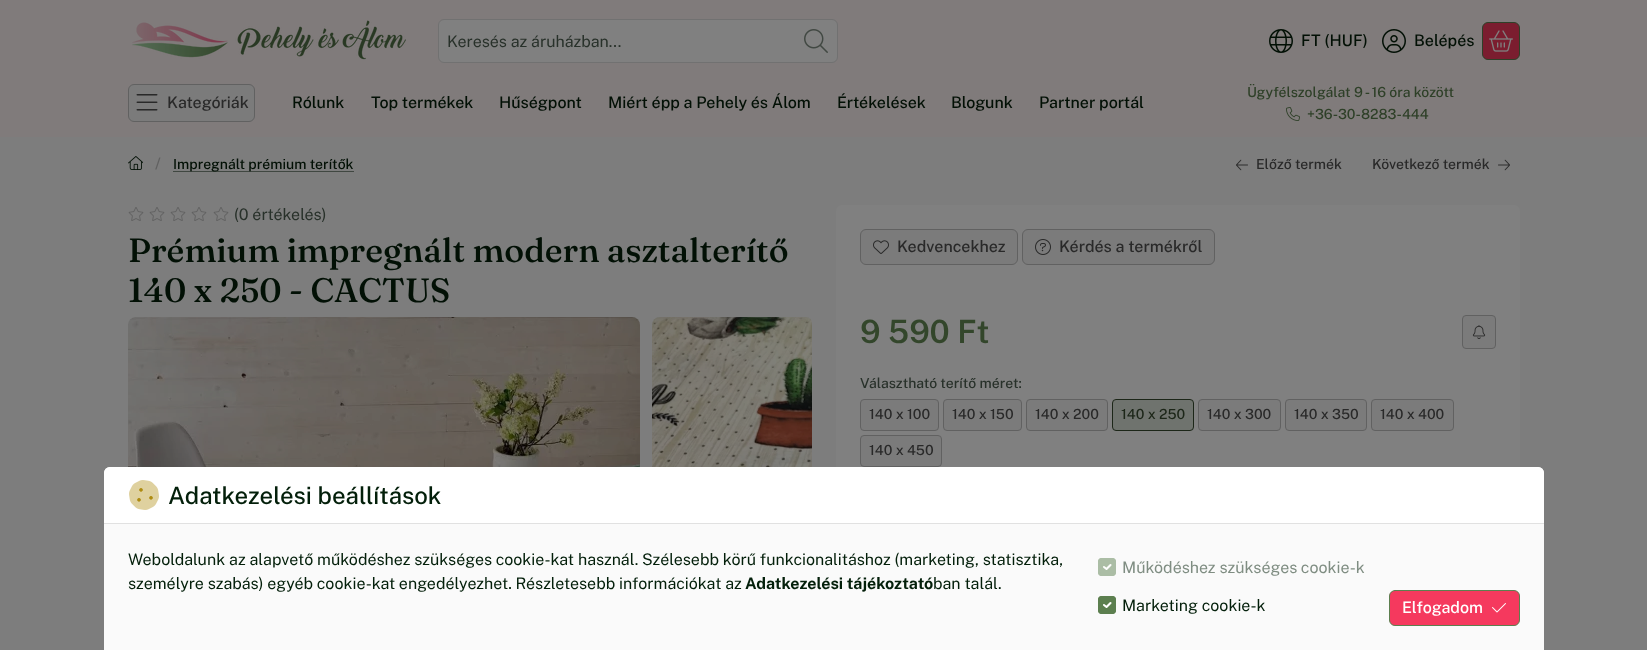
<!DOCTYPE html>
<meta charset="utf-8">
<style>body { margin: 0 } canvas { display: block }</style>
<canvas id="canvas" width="1647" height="650"></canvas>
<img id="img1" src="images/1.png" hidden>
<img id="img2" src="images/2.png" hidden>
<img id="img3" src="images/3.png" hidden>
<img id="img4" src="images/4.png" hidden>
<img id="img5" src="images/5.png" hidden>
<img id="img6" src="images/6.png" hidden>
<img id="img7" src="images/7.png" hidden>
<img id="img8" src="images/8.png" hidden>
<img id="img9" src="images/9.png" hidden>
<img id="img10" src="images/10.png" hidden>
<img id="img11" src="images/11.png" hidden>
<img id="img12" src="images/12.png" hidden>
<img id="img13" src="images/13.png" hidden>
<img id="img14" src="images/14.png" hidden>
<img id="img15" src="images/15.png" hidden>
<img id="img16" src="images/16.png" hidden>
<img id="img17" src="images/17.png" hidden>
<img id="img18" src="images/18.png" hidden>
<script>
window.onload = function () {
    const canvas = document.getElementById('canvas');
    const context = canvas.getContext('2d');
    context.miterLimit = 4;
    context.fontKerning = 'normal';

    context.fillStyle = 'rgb(125, 125, 125)';
    context.fillRect(0, 0, 1647, 650);
    context.fillStyle = 'rgb(128, 123, 123)';
    context.fillRect(0, 0, 1647, 137);
    context.drawImage(document.getElementById('img1'), 132, 20, 274, 40);
    context.fillStyle = 'rgb(128, 128, 128)';
    context.beginPath();
    context.roundRect(438.5, 19.5, 399, 43, 5.5);
    context.fill();
    context.strokeStyle = 'rgb(113, 113, 113)';
    context.stroke();
    context.drawImage(document.getElementById('img2'), 804, 29, 24, 24);
    context.drawImage(document.getElementById('img3'), 1269, 29, 24, 24);
    context.drawImage(document.getElementById('img4'), 1382, 29, 24, 24);
    context.fillStyle = 'rgb(123, 29, 47)';
    context.beginPath();
    context.roundRect(1482.5, 22.5, 37, 37, 5.5);
    context.fill();
    context.strokeStyle = 'rgb(46, 64, 40)';
    context.stroke();
    context.drawImage(document.getElementById('img5'), 1489, 30, 24, 22);
    context.fillStyle = 'rgb(123, 123, 123)';
    context.beginPath();
    context.roundRect(128.5, 84.5, 126, 37, 5.5);
    context.fill();
    context.strokeStyle = 'rgb(97, 97, 97)';
    context.stroke();
    context.drawImage(document.getElementById('img6'), 136, 94, 22, 17);
    context.drawImage(document.getElementById('img7'), 1286, 107, 14, 14);
    context.drawImage(document.getElementById('img8'), 128, 156, 15, 14);
    context.fillStyle = 'rgb(64, 71, 65)';
    context.fillRect(173, 171, 181, 1);
    context.drawImage(document.getElementById('img9'), 1236, 159, 12, 12);
    context.drawImage(document.getElementById('img10'), 1498, 159, 12, 12);
    context.drawImage(document.getElementById('img11'), 128, 207, 16, 14);
    context.drawImage(document.getElementById('img11'), 149, 207, 16, 14);
    context.drawImage(document.getElementById('img11'), 170, 207, 16, 14);
    context.drawImage(document.getElementById('img11'), 191, 207, 16, 14);
    context.drawImage(document.getElementById('img11'), 213, 207, 16, 14);
    context.drawImage(document.getElementById('img12'), 128, 317, 512, 150);
    context.drawImage(document.getElementById('img13'), 652, 317, 160, 150);
    context.fillStyle = 'rgb(128, 128, 128)';
    context.beginPath();
    context.roundRect(836, 205, 684, 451, 6);
    context.fill();
    context.fillStyle = 'rgb(123, 123, 123)';
    context.beginPath();
    context.roundRect(860.5, 229.5, 157, 35, 5.5);
    context.fill();
    context.stroke();
    context.drawImage(document.getElementById('img14'), 873, 240, 16, 14);
    context.beginPath();
    context.roundRect(1022.5, 229.5, 192, 35, 5.5);
    context.fill();
    context.stroke();
    context.drawImage(document.getElementById('img15'), 1035, 239, 16, 16);
    context.beginPath();
    context.roundRect(1462.5, 315.5, 33, 33, 3.5);
    context.fill();
    context.stroke();
    context.drawImage(document.getElementById('img16'), 1472, 325, 14, 14);
    context.beginPath();
    context.roundRect(860.5, 399.5, 78, 31, 3.5);
    context.fill();
    context.stroke();
    context.beginPath();
    context.roundRect(943.5, 399.5, 78, 31, 3.5);
    context.fill();
    context.stroke();
    context.beginPath();
    context.roundRect(1026.5, 399.5, 81, 31, 3.5);
    context.fill();
    context.stroke();
    context.fillStyle = 'rgb(111, 115, 110)';
    context.beginPath();
    context.roundRect(1112.5, 399.5, 81, 31, 3.5);
    context.fill();
    context.strokeStyle = 'rgb(28, 38, 24)';
    context.stroke();
    context.fillStyle = 'rgb(123, 123, 123)';
    context.beginPath();
    context.roundRect(1198.5, 399.5, 82, 31, 3.5);
    context.fill();
    context.strokeStyle = 'rgb(97, 97, 97)';
    context.stroke();
    context.beginPath();
    context.roundRect(1285.5, 399.5, 81, 31, 3.5);
    context.fill();
    context.stroke();
    context.beginPath();
    context.roundRect(1371.5, 399.5, 82, 31, 3.5);
    context.fill();
    context.stroke();
    context.beginPath();
    context.roundRect(860.5, 435.5, 81, 31, 3.5);
    context.fill();
    context.stroke();
    context.fillStyle = 'rgb(250, 250, 250)';
    context.beginPath();
    context.roundRect(104, 467, 1440, 183, [6, 6, 0, 0]);
    context.fill();
    context.fillStyle = 'rgb(255, 255, 255)';
    context.beginPath();
    context.roundRect(104, 467, 1440, 57, [6, 6, 0, 0]);
    context.fill();
    context.fillStyle = 'rgb(225, 225, 225)';
    context.fillRect(104, 523, 1440, 1);
    context.drawImage(document.getElementById('img17'), 129, 480, 30, 30);
    context.fillStyle = 'rgb(171, 189, 165)';
    context.beginPath();
    context.roundRect(1098, 558, 18, 18, 4);
    context.fill();
    context.beginPath();
    context.moveTo(1104, 567);
    context.lineTo(1106.5, 569);
    context.lineTo(1110.5, 565);
    context.strokeStyle = 'rgb(253, 253, 253)';
    context.lineWidth = 2.1;
    context.lineCap = 'round';
    context.lineJoin = 'round';
    context.stroke();
    context.beginPath();
    context.roundRect(1099, 559, 16, 16, 3);
    context.strokeStyle = 'rgb(171, 189, 165)';
    context.lineWidth = 2;
    context.lineJoin = 'miter';
    context.stroke();
    context.fillStyle = 'rgb(92, 127, 79)';
    context.beginPath();
    context.roundRect(1098, 596, 18, 18, 4);
    context.fill();
    context.beginPath();
    context.moveTo(1104, 605);
    context.lineTo(1106.5, 607);
    context.lineTo(1110.5, 603);
    context.strokeStyle = 'rgb(255, 255, 255)';
    context.lineWidth = 2.1;
    context.lineJoin = 'round';
    context.stroke();
    context.beginPath();
    context.roundRect(1099, 597, 16, 16, 3);
    context.strokeStyle = 'rgb(92, 127, 79)';
    context.lineWidth = 2;
    context.lineJoin = 'miter';
    context.stroke();
    context.fillStyle = 'rgb(245, 57, 94)';
    context.beginPath();
    context.roundRect(1389.5, 590.5, 130, 35, 5.5);
    context.fill();
    context.lineWidth = 1;
    context.stroke();
    context.drawImage(document.getElementById('img18'), 1492, 603, 14, 10);
    context.font = '16px Public Sans';
    context.fillStyle = 'rgb(40, 49, 42)';
    context.fillText('Keresés az áruházban...', 447, 47);
    context.font = '500 16px Public Sans';
    context.fillStyle = 'rgb(2, 16, 5)';
    context.fillText('FT (HUF)', 1301, 46);
    context.fillText('Belépés', 1414, 46);
    context.fillStyle = 'rgb(41, 41, 41)';
    context.fillText('Kategóriák', 167, 108);
    context.fillStyle = 'rgb(2, 16, 5)';
    context.fillText('Rólunk', 292, 108);
    context.fillText('Top termékek', 371, 108);
    context.fillText('Hűségpont', 499, 108);
    context.fillText('Miért épp a Pehely és Álom', 608, 108);
    context.fillText('Értékelések', 837, 108);
    context.fillText('Blogunk', 951, 108);
    context.fillText('Partner portál', 1039, 108);
    context.font = '500 14px Public Sans';
    context.fillStyle = 'rgb(46, 64, 40)';
    context.fillText('Ügyfélszolgálat 9 - 16 óra között', 1247, 97);
    context.fillText('+36-30-8283-444', 1307, 119);
    context.font = '500 16px Public Sans';
    context.fillStyle = 'rgb(97, 97, 97)';
    context.fillText('/', 155, 169);
    context.font = '500 14px Public Sans';
    context.fillStyle = 'rgb(2, 16, 5)';
    context.fillText('Impregnált prémium terítők', 173, 169);
    context.fillStyle = 'rgb(41, 41, 41)';
    context.fillText('Előző termék', 1256, 169);
    context.fillText('Következő termék', 1372, 169);
    context.font = '16px Public Sans';
    context.fillStyle = 'rgb(40, 49, 42)';
    context.fillText('(0 értékelés)', 234, 220);
    context.font = '500 33.7px Fraunces';
    context.fillStyle = 'rgb(2, 16, 5)';
    context.fillText('Prémium impregnált modern asztalterítő', 128, 262);
    context.fillText('140 x 250 - CACTUS', 128, 302);
    context.font = '500 16px Public Sans';
    context.fillStyle = 'rgb(41, 41, 41)';
    context.fillText('Kedvencekhez', 897, 252);
    context.fillText('Kérdés a termékről', 1059, 252);
    context.font = '600 32px Public Sans';
    context.fillStyle = 'rgb(51, 70, 43)';
    context.fillText('9 590 Ft', 860, 343);
    context.font = '500 14px Public Sans';
    context.fillStyle = 'rgb(40, 49, 42)';
    context.fillText('Választható terítő méret:', 860, 388);
    context.fillStyle = 'rgb(41, 41, 41)';
    context.fillText('140 x 100', 869, 419);
    context.fillText('140 x 150', 952, 419);
    context.fillText('140 x 200', 1035, 419);
    context.fillStyle = 'rgb(28, 38, 24)';
    context.fillText('140 x 250', 1121, 419);
    context.fillStyle = 'rgb(41, 41, 41)';
    context.fillText('140 x 300', 1207, 419);
    context.fillText('140 x 350', 1294, 419);
    context.fillText('140 x 400', 1380, 419);
    context.fillText('140 x 450', 869, 455);
    context.font = '500 24px Public Sans';
    context.fillStyle = 'rgb(3, 31, 10)';
    context.fillText('Adatkezelési beállítások', 168, 504);
    context.font = '16px Public Sans';
    context.fillText('Weboldalunk az alapvető működéshez szükséges cookie-kat használ. Szélesebb körű funkcionalitáshoz (marketing, statisztika,', 128, 565);
    context.fillText('személyre szabás) egyéb cookie-kat engedélyezhet. Részletesebb információkat az', 128, 589);
    context.font = 'bold 16px Public Sans';
    context.fillText('Adatkezelési tájékoztató', 745, 589);
    context.font = '16px Public Sans';
    context.fillText('ban talál.', 933, 589);
    context.fillStyle = 'rgb(127, 141, 130)';
    context.fillText('Működéshez szükséges cookie-k', 1122, 573);
    context.fillStyle = 'rgb(3, 31, 10)';
    context.fillText('Marketing cookie-k', 1122, 611);
    context.font = '500 16px Public Sans';
    context.fillStyle = 'rgb(255, 255, 255)';
    context.fillText('Elfogadom', 1402, 613);
};
</script>
